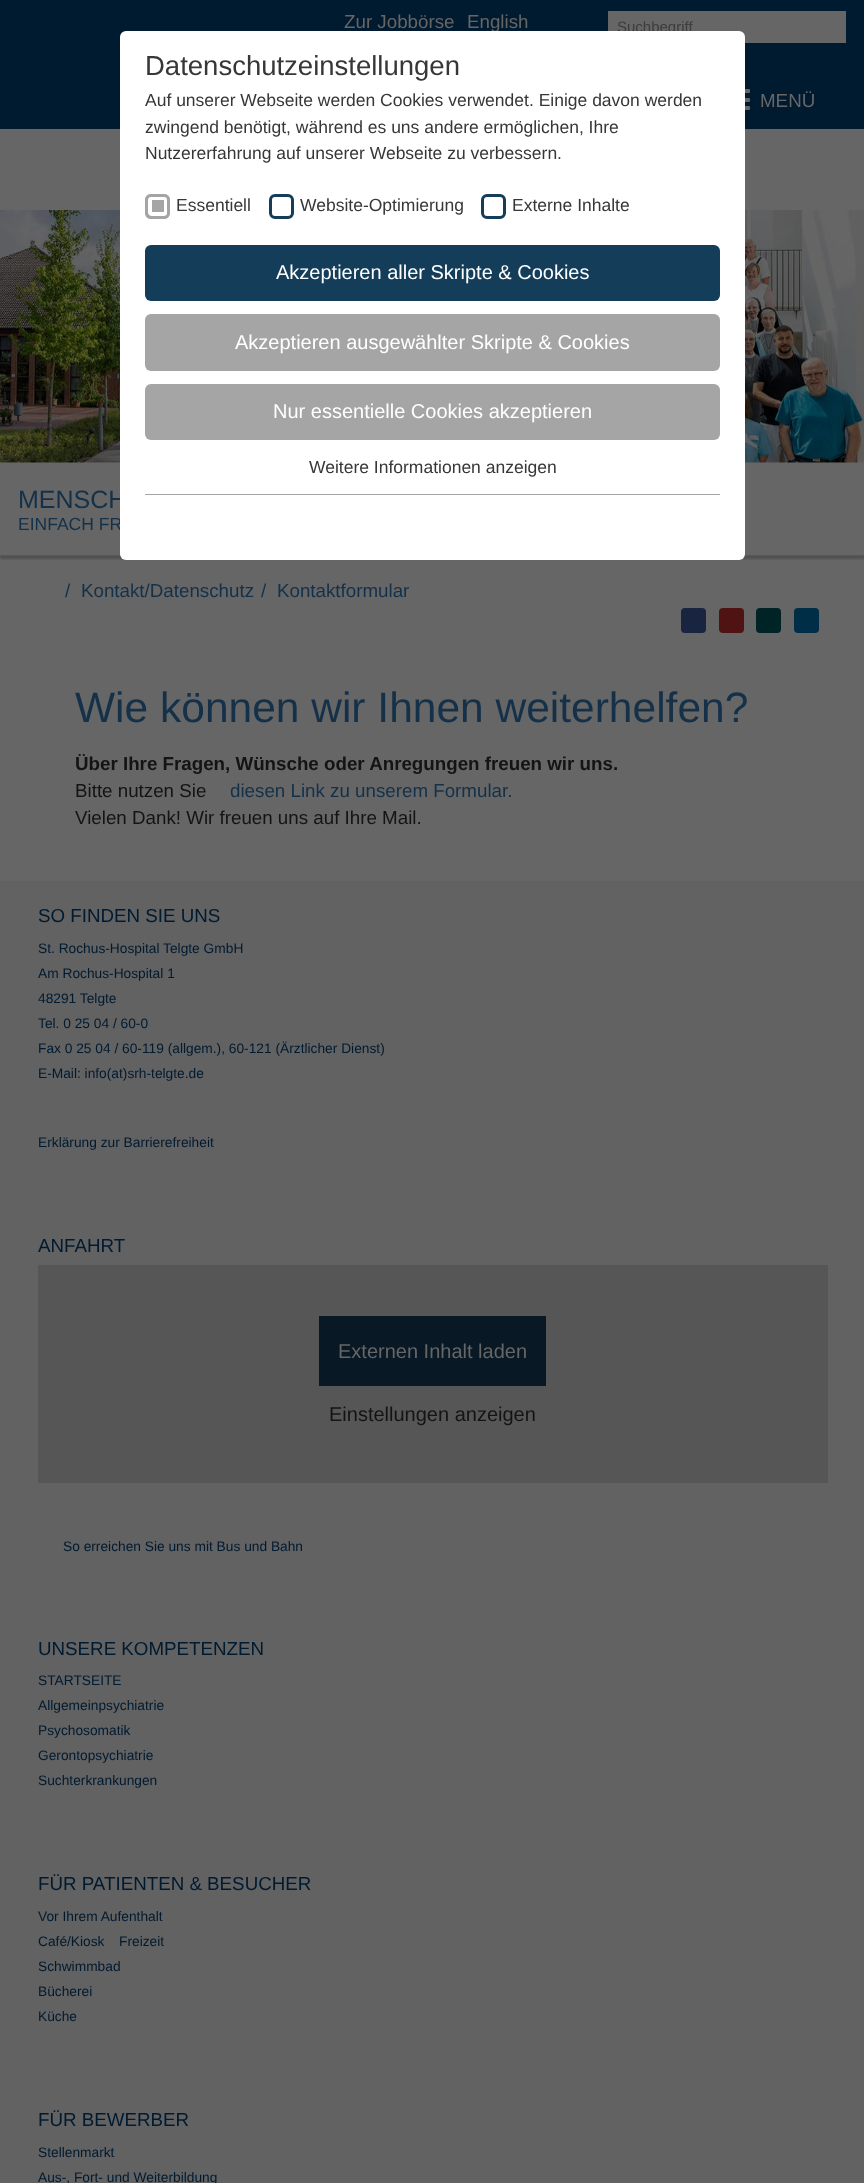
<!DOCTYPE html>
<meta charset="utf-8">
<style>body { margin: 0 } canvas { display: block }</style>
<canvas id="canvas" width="864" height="2183"></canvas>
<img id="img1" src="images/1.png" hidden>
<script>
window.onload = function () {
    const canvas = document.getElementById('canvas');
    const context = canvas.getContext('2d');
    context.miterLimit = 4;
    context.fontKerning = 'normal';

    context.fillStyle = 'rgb(102, 102, 102)';
    context.fillRect(0, 0, 864, 2183);
    context.fillStyle = 'rgb(0, 26, 48)';
    context.fillRect(0, 0, 864, 129);
    context.fillStyle = 'rgb(102, 102, 102)';
    context.fillRect(608, 11, 238, 32);
    context.beginPath();
    context.roundRect(723, 89, 27, 4, 1);
    context.fill();
    context.beginPath();
    context.roundRect(723, 98, 27, 4, 1);
    context.fill();
    context.beginPath();
    context.roundRect(723, 106, 27, 4, 1);
    context.fill();
    context.save();
    context.beginPath();
    context.rect(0, 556, 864, 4);
    context.clip();
    context.fillStyle = 'rgba(34, 34, 34, 0.3)';
    context.filter = 'blur(1px)';
    context.beginPath();
    context.rect(0, 213, 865, 346);
    context.fill();
    context.filter = 'none';
    context.restore();
    context.fillStyle = 'rgb(88, 88, 88)';
    context.fillRect(0, 555, 864, 1);
    context.drawImage(document.getElementById('img1'), 0, 210, 864, 253);
    context.fillStyle = 'rgb(24, 36, 64)';
    context.beginPath();
    context.roundRect(681, 608, 25, 25, 4);
    context.fill();
    context.fillStyle = 'rgb(79, 19, 19)';
    context.beginPath();
    context.roundRect(719, 608, 25, 25, 4);
    context.fill();
    context.fillStyle = 'rgb(0, 36, 38)';
    context.beginPath();
    context.roundRect(756, 608, 25, 25, 4);
    context.fill();
    context.fillStyle = 'rgb(0, 46, 71)';
    context.beginPath();
    context.roundRect(794, 608, 25, 25, 4);
    context.fill();
    context.fillStyle = 'rgba(34, 34, 34, 0.6)';
    context.filter = 'blur(2.5px)';
    context.beginPath();
    context.rect(0, 885, 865, 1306);
    context.fill();
    context.filter = 'none';
    context.fillStyle = 'rgb(98, 98, 98)';
    context.fillRect(0, 883, 864, 1300);
    context.fillStyle = 'rgb(86, 86, 86)';
    context.fillRect(38, 1265, 790, 218);
    context.fillStyle = 'rgb(8, 24, 36)';
    context.fillRect(319, 1316, 227, 70);
    context.font = '18.75px Liberation Sans';
    context.fillStyle = 'rgb(102, 102, 102)';
    context.fillText('Zur Jobbörse', 344, 28);
    context.fillText('English', 467, 28);
    context.font = '15px Liberation Sans';
    context.fillStyle = 'rgb(61, 61, 61)';
    context.fillText('Suchbegriff', 617, 32);
    context.font = '18.75px Liberation Sans';
    context.fillStyle = 'rgb(102, 102, 102)';
    context.fillText('MENÜ', 760, 107);
    context.font = '25px Liberation Sans';
    context.fillStyle = 'rgb(20, 49, 73)';
    context.fillText('MENSCH', 18, 508);
    context.font = '17.5px Liberation Sans';
    context.fillText('EINFACH FR', 18, 530);
    context.fillStyle = 'rgb(255, 255, 255)';
    context.beginPath();
    context.roundRect(120, 31, 625, 529, 6);
    context.fill();
    context.fillStyle = 'rgb(55, 55, 55)';
    context.fillText('Weitere Informationen anzeigen', 309, 473);
    context.fillStyle = 'rgb(165, 165, 165)';
    context.beginPath();
    context.roundRect(145, 384, 575, 56, 6);
    context.fill();
    context.font = '20px Liberation Sans';
    context.fillStyle = 'rgb(255, 255, 255)';
    context.fillText('Nur essentielle Cookies akzeptieren', 273, 418);
    context.fillStyle = 'rgb(165, 165, 165)';
    context.beginPath();
    context.roundRect(145, 314, 575, 57, 6);
    context.fill();
    context.fillStyle = 'rgb(255, 255, 255)';
    context.fillText('Akzeptieren ausgewählter Skripte & Cookies', 235, 349);
    context.fillStyle = 'rgb(20, 61, 89)';
    context.beginPath();
    context.roundRect(145, 245, 575, 56, 6);
    context.fill();
    context.fillStyle = 'rgb(255, 255, 255)';
    context.fillText('Akzeptieren aller Skripte & Cookies', 276, 279);
    context.font = '17.5px Liberation Sans';
    context.fillStyle = 'rgb(55, 55, 55)';
    context.fillText('Externe Inhalte', 512, 211);
    context.beginPath();
    context.roundRect(482.5, 195.5, 22, 22, 4.5);
    context.strokeStyle = 'rgb(20, 61, 89)';
    context.lineWidth = 3;
    context.stroke();
    context.fillText('Website-Optimierung', 300, 211);
    context.beginPath();
    context.roundRect(270.5, 195.5, 22, 22, 4.5);
    context.stroke();
    context.fillText('Essentiell', 176, 211);
    context.fillStyle = 'rgb(165, 165, 165)';
    context.beginPath();
    context.roundRect(145, 194, 25, 25, 6);
    context.fill();
    context.beginPath();
    context.roundRect(150, 198, 16, 16, 2);
    context.strokeStyle = 'rgb(255, 255, 255)';
    context.lineWidth = 4;
    context.stroke();
    context.beginPath();
    context.roundRect(146.5, 195.5, 22, 22, 4.5);
    context.strokeStyle = 'rgb(165, 165, 165)';
    context.lineWidth = 3;
    context.stroke();
    context.fillStyle = 'rgb(55, 55, 55)';
    context.fillText('Nutzererfahrung auf unserer Webseite zu verbessern.', 145, 159);
    context.fillText('zwingend benötigt, während es uns andere ermöglichen, Ihre', 145, 133);
    context.fillText('Auf unserer Webseite werden Cookies verwendet. Einige davon werden', 145, 106);
    context.font = '27.5px Liberation Sans';
    context.fillText('Datenschutzeinstellungen', 145, 75);
    context.fillStyle = 'rgb(165, 165, 165)';
    context.fillRect(145, 494, 575, 1);
    context.font = '18.75px Liberation Sans';
    context.fillStyle = 'rgb(20, 49, 73)';
    context.fillText('/', 65, 597);
    context.fillText('Kontakt/Datenschutz', 81, 597);
    context.fillText('/', 261, 597);
    context.fillText('Kontaktformular', 277, 597);
    context.font = '42.5px Liberation Sans';
    context.fillText('Wie können wir Ihnen weiterhelfen?', 75, 722);
    context.font = 'bold 18.75px Liberation Sans';
    context.fillStyle = 'rgb(20, 20, 20)';
    context.fillText('Über Ihre Fragen, Wünsche oder Anregungen freuen wir uns.', 75, 770);
    context.font = '18.75px Liberation Sans';
    context.fillText('Bitte nutzen Sie', 75, 797);
    context.fillStyle = 'rgb(20, 49, 73)';
    context.fillText('diesen Link zu unserem Formular.', 230, 797);
    context.fillStyle = 'rgb(20, 20, 20)';
    context.fillText('Vielen Dank! Wir freuen uns auf Ihre Mail.', 75, 824);
    context.fillStyle = 'rgb(0, 26, 48)';
    context.fillText('SO FINDEN SIE UNS', 38, 922);
    context.font = '13.75px Liberation Sans';
    context.fillText('St. Rochus-Hospital Telgte GmbH', 38, 953);
    context.fillText('Am Rochus-Hospital 1', 38, 978);
    context.fillText('48291 Telgte', 38, 1003);
    context.fillText('Tel. 0 25 04 / 60-0', 38, 1028);
    context.fillText('Fax 0 25 04 / 60-119 (allgem.), 60-121 (Ärztlicher Dienst)', 38, 1053);
    context.fillText('E-Mail: info(at)srh-telgte.de', 38, 1078);
    context.fillText('Erklärung zur Barrierefreiheit', 38, 1147);
    context.font = '18.75px Liberation Sans';
    context.fillText('ANFAHRT', 38, 1252);
    context.font = '20px Liberation Sans';
    context.fillStyle = 'rgb(102, 102, 102)';
    context.fillText('Externen Inhalt laden', 338, 1358);
    context.fillStyle = 'rgb(20, 20, 20)';
    context.fillText('Einstellungen anzeigen', 329, 1421);
    context.font = '13.75px Liberation Sans';
    context.fillStyle = 'rgb(0, 26, 48)';
    context.fillText('So erreichen Sie uns mit Bus und Bahn', 63, 1551);
    context.font = '18.75px Liberation Sans';
    context.fillText('UNSERE KOMPETENZEN', 38, 1655);
    context.font = '13.75px Liberation Sans';
    context.fillText('STARTSEITE', 38, 1685);
    context.fillText('Allgemeinpsychiatrie', 38, 1710);
    context.fillText('Psychosomatik', 38, 1735);
    context.fillText('Gerontopsychiatrie', 38, 1760);
    context.fillText('Suchterkrankungen', 38, 1785);
    context.font = '18.75px Liberation Sans';
    context.fillText('FÜR PATIENTEN & BESUCHER', 38, 1890);
    context.font = '13.75px Liberation Sans';
    context.fillText('Vor Ihrem Aufenthalt', 38, 1921);
    context.fillText('Café/Kiosk', 38, 1946);
    context.fillText('Freizeit', 119, 1946);
    context.fillText('Schwimmbad', 38, 1971);
    context.fillText('Bücherei', 38, 1996);
    context.fillText('Küche', 38, 2021);
    context.font = '18.75px Liberation Sans';
    context.fillText('FÜR BEWERBER', 38, 2126);
    context.font = '13.75px Liberation Sans';
    context.fillText('Stellenmarkt', 38, 2157);
    context.fillText('Aus-, Fort- und Weiterbildung', 38, 2182);
};
</script>
